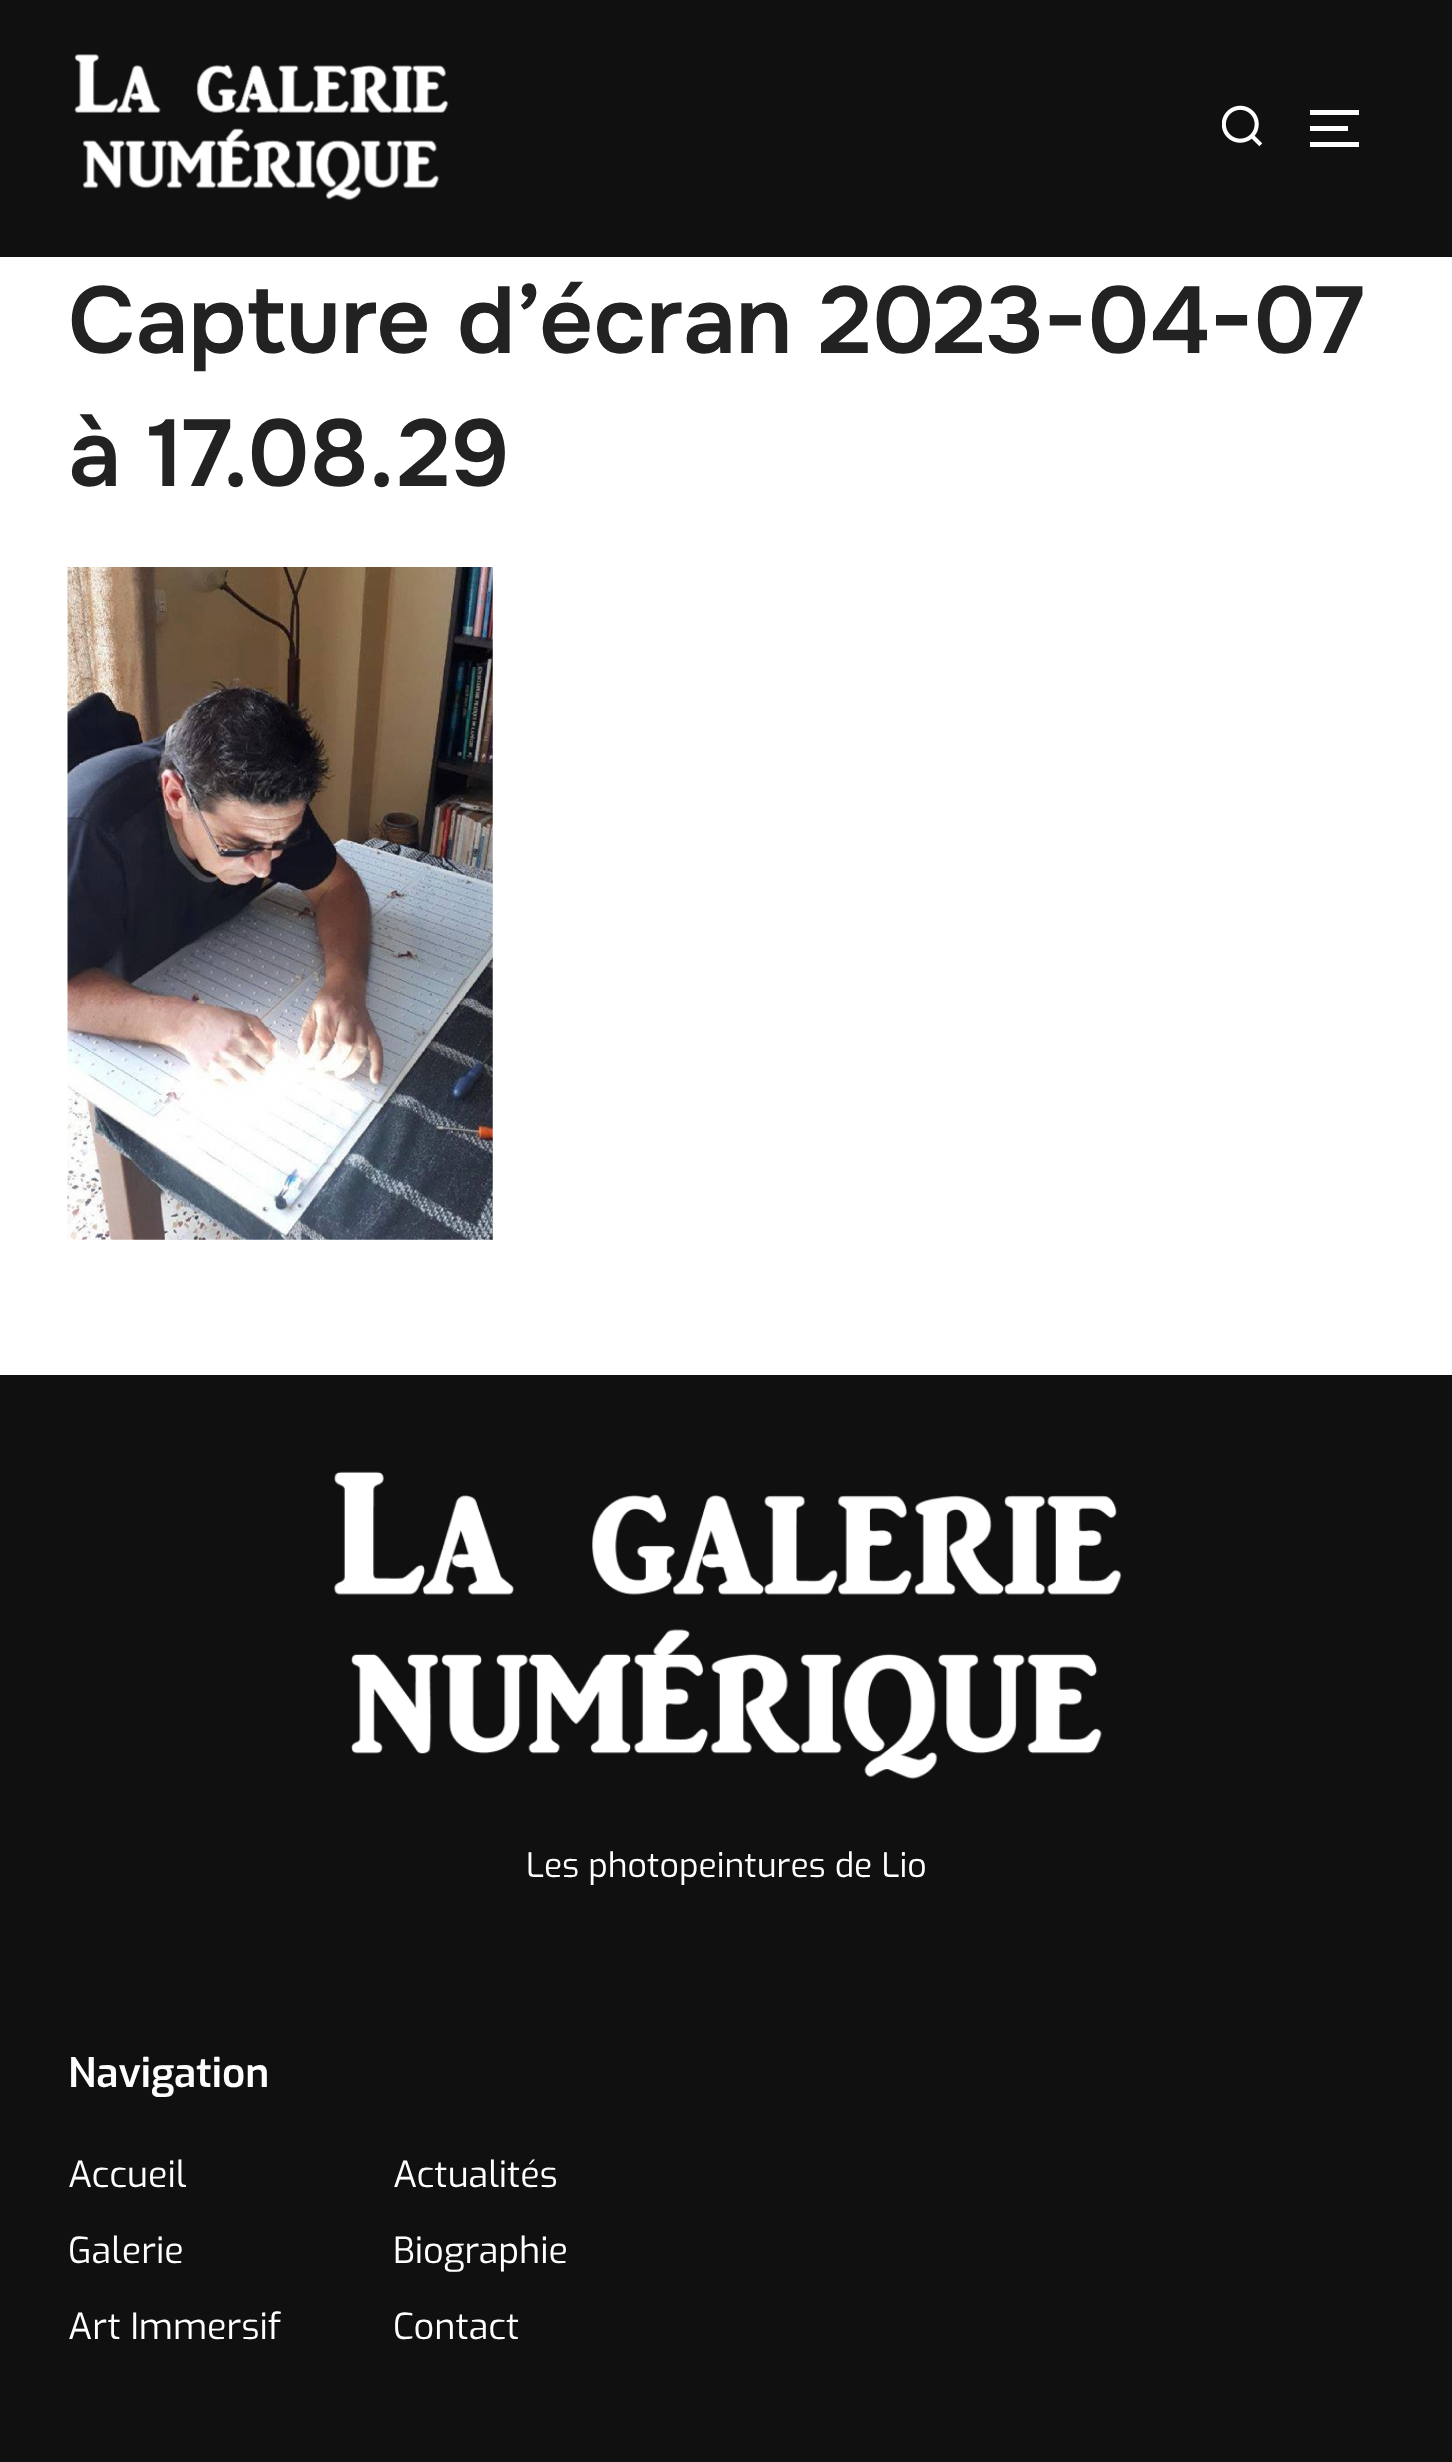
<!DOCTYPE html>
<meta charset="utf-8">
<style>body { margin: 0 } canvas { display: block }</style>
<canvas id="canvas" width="1452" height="2462"></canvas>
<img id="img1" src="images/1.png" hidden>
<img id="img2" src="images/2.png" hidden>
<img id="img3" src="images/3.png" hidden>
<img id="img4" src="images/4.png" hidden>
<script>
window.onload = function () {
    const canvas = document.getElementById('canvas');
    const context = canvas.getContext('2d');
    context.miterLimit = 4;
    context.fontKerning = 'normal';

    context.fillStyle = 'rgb(255, 255, 255)';
    context.fillRect(0, 0, 1452, 2462);
    context.fillStyle = 'rgb(16, 16, 16)';
    context.fillRect(0, 0, 1452, 257);
    context.drawImage(document.getElementById('img1'), 74, 54, 375, 147);
    context.drawImage(document.getElementById('img2'), 1222, 105, 40, 42);
    context.fillStyle = 'rgb(255, 255, 255)';
    context.fillRect(1310, 110, 49, 5);
    context.fillRect(1310, 126, 38, 5);
    context.fillRect(1310, 142, 49, 5);
    context.drawImage(document.getElementById('img3'), 67, 567, 426, 673);
    context.fillStyle = 'rgb(16, 16, 16)';
    context.fillRect(0, 1375, 1452, 1087);
    context.drawImage(document.getElementById('img4'), 334, 1471, 788, 308);
    context.font = '600 94.5px Onest';
    context.fillStyle = 'rgb(34, 34, 34)';
    context.fillText('Capture d’écran 2023-04-07', 68, 353);
    context.fillText('à 17.08.29', 68, 486);
    context.font = '33.75px Exo';
    context.fillStyle = 'rgb(255, 255, 255)';
    context.fillText('Les photopeintures de Lio', 526, 1877);
    context.font = '600 40.5px Exo';
    context.fillText('Navigation', 68, 2087);
    context.font = '36px Exo';
    context.fillText('Accueil', 68, 2187);
    context.fillText('Galerie', 68, 2263);
    context.fillText('Art Immersif', 68, 2339);
    context.fillText('Actualités', 393, 2187);
    context.fillText('Biographie', 393, 2263);
    context.fillText('Contact', 393, 2339);
};
</script>
